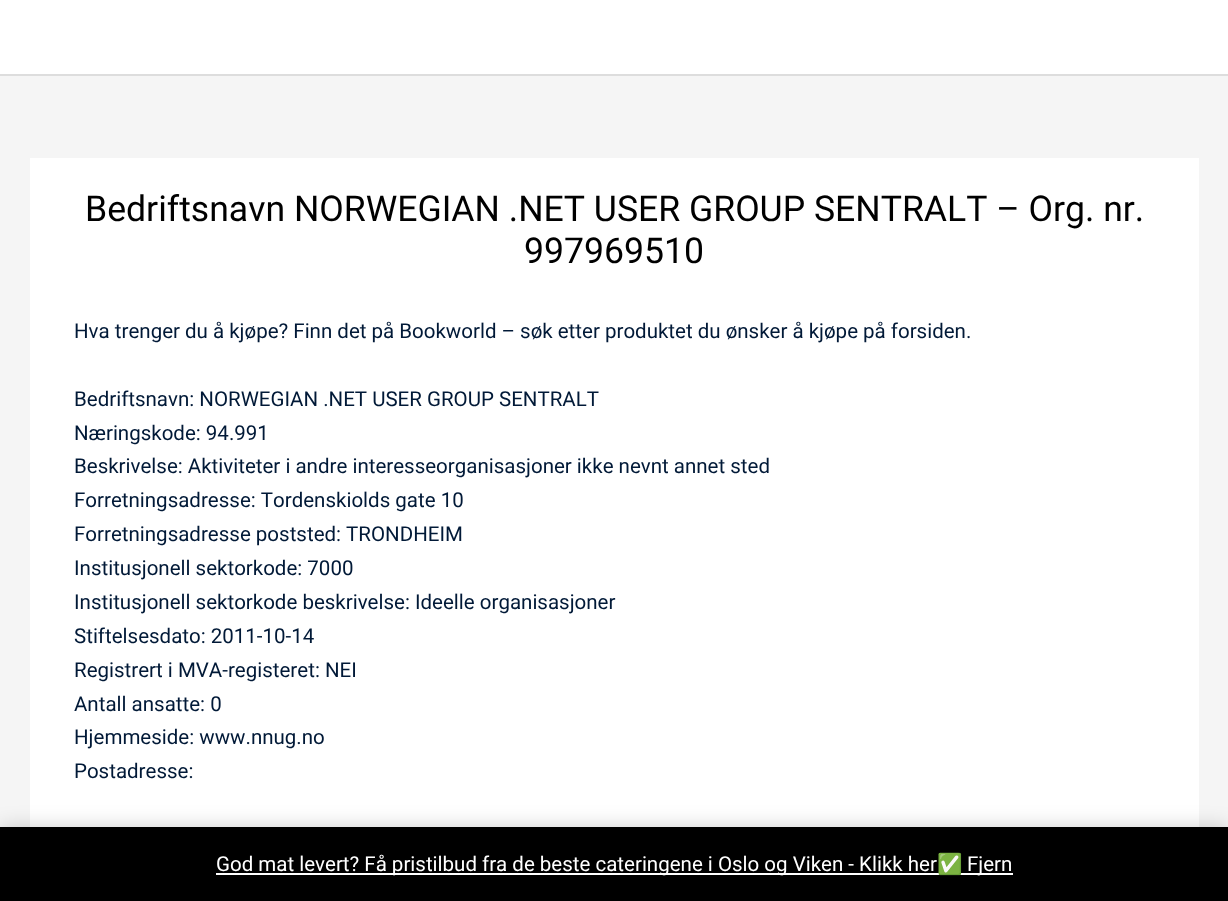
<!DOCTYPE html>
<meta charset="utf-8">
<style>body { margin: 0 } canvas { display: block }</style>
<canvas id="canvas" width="1228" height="901"></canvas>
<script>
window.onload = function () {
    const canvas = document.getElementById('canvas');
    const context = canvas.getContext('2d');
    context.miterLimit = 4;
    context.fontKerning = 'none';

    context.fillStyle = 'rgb(245, 245, 245)';
    context.fillRect(0, 0, 1228, 901);
    context.fillStyle = 'rgb(255, 255, 255)';
    context.fillRect(0, 0, 1228, 74);
    context.fillStyle = 'rgb(221, 221, 221)';
    context.fillRect(0, 74, 1228, 2);
    context.fillStyle = 'rgb(255, 255, 255)';
    context.fillRect(30, 158, 1169, 669);
    context.fillStyle = 'rgba(0, 0, 0, 0.2)';
    context.filter = 'blur(10.5px)';
    context.beginPath();
    context.rect(0, 828, 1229, 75);
    context.fill();
    context.filter = 'none';
    context.fillStyle = 'rgb(0, 0, 0)';
    context.fillRect(0, 827, 1228, 74);
    context.fillStyle = 'rgb(255, 255, 255)';
    context.fillRect(216, 873, 797, 2);
    context.font = '35.6px Roboto';
    context.fillStyle = 'rgb(0, 0, 0)';
    context.fillText('Bedriftsnavn NORWEGIAN .NET USER GROUP SENTRALT – Org. nr.', 85, 221);
    context.fillText('997969510', 524, 263);
    context.font = '20.5px Roboto';
    context.fillStyle = 'rgb(1, 25, 55)';
    context.fillText('Hva trenger du å kjøpe? Finn det på Bookworld – søk etter produktet du ønsker å kjøpe på forsiden.', 74, 338);
    context.fillText('Bedriftsnavn: NORWEGIAN .NET USER GROUP SENTRALT', 74, 406);
    context.fillText('Næringskode: 94.991', 74, 440);
    context.fillText('Beskrivelse: Aktiviteter i andre interesseorganisasjoner ikke nevnt annet sted', 74, 473);
    context.fillText('Forretningsadresse: Tordenskiolds gate 10', 74, 507);
    context.fillText('Forretningsadresse poststed: TRONDHEIM', 74, 541);
    context.fillText('Institusjonell sektorkode: 7000', 74, 575);
    context.fillText('Institusjonell sektorkode beskrivelse: Ideelle organisasjoner', 74, 609);
    context.fillText('Stiftelsesdato: 2011-10-14', 74, 643);
    context.fillText('Registrert i MVA-registeret: NEI', 74, 677);
    context.fillText('Antall ansatte: 0', 74, 711);
    context.fillText('Hjemmeside: www.nnug.no', 74, 744);
    context.fillText('Postadresse:', 74, 778);
    context.fillStyle = 'rgb(255, 255, 255)';
    context.fillText('God mat levert? Få pristilbud fra de beste cateringene i Oslo og Viken - Klikk her', 216, 871);
    context.font = '20.5px Noto Color Emoji';
    context.fillText('✅', 937, 871);
    context.font = '20.5px Roboto';
    context.fillText('Fjern', 967, 871);
};
</script>
